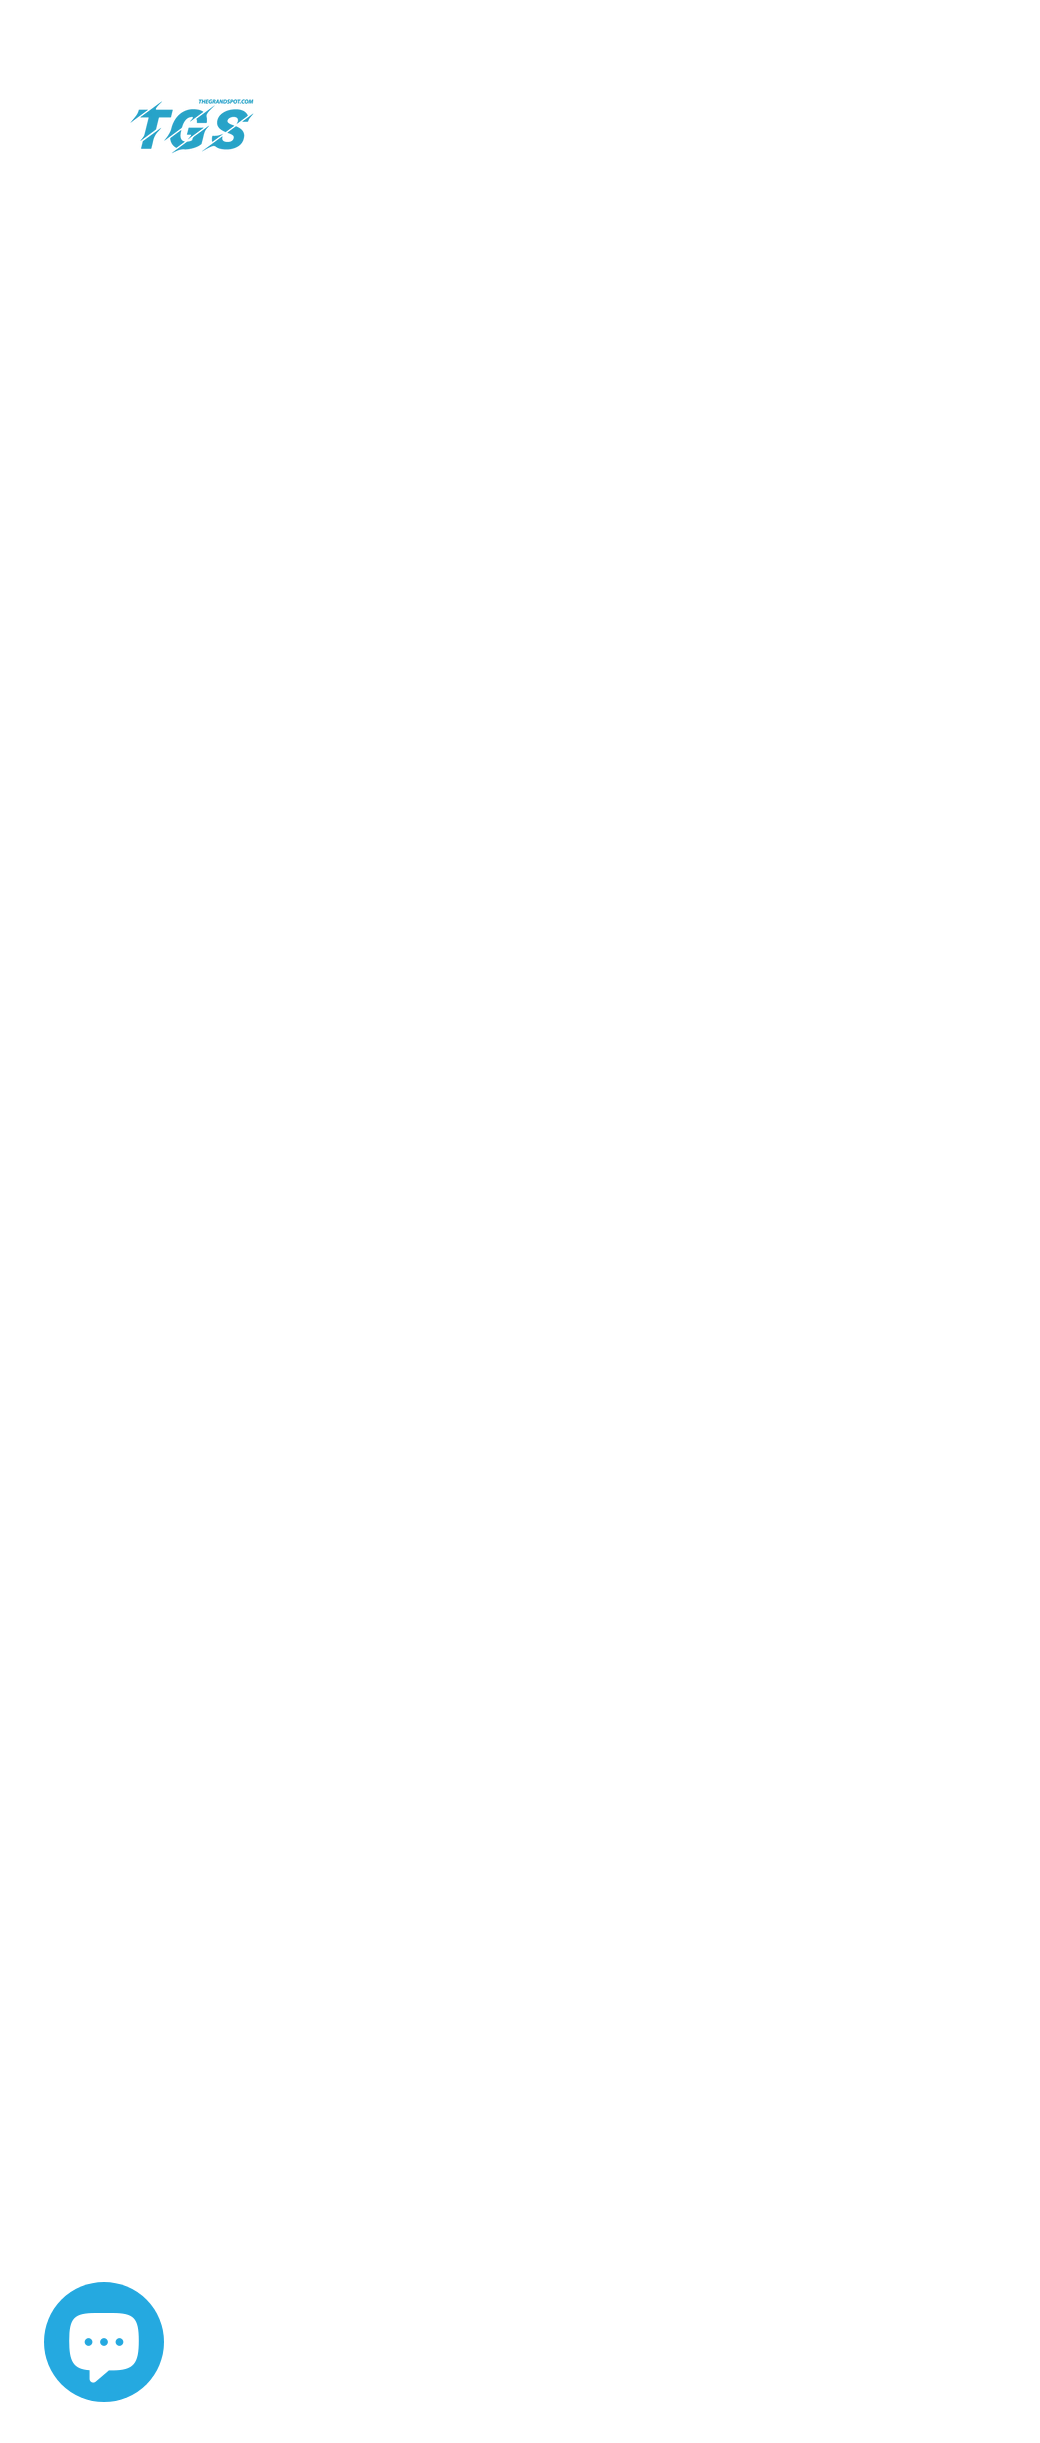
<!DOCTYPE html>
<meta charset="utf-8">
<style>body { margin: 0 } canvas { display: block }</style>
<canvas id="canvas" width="1040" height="2443"></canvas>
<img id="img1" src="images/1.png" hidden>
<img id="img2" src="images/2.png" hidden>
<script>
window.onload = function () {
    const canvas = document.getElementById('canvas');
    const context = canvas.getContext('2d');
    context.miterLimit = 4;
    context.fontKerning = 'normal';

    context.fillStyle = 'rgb(255, 255, 255)';
    context.fillRect(0, 0, 1040, 2443);
    context.drawImage(document.getElementById('img1'), 130, 99, 124, 55);
    context.fillStyle = 'rgb(37, 169, 224)';
    context.beginPath();
    context.arc(104, 2342, 60, 0, 2 * Math.PI);
    context.fill();
    context.drawImage(document.getElementById('img2'), 69, 2313, 70, 70);
};
</script>
